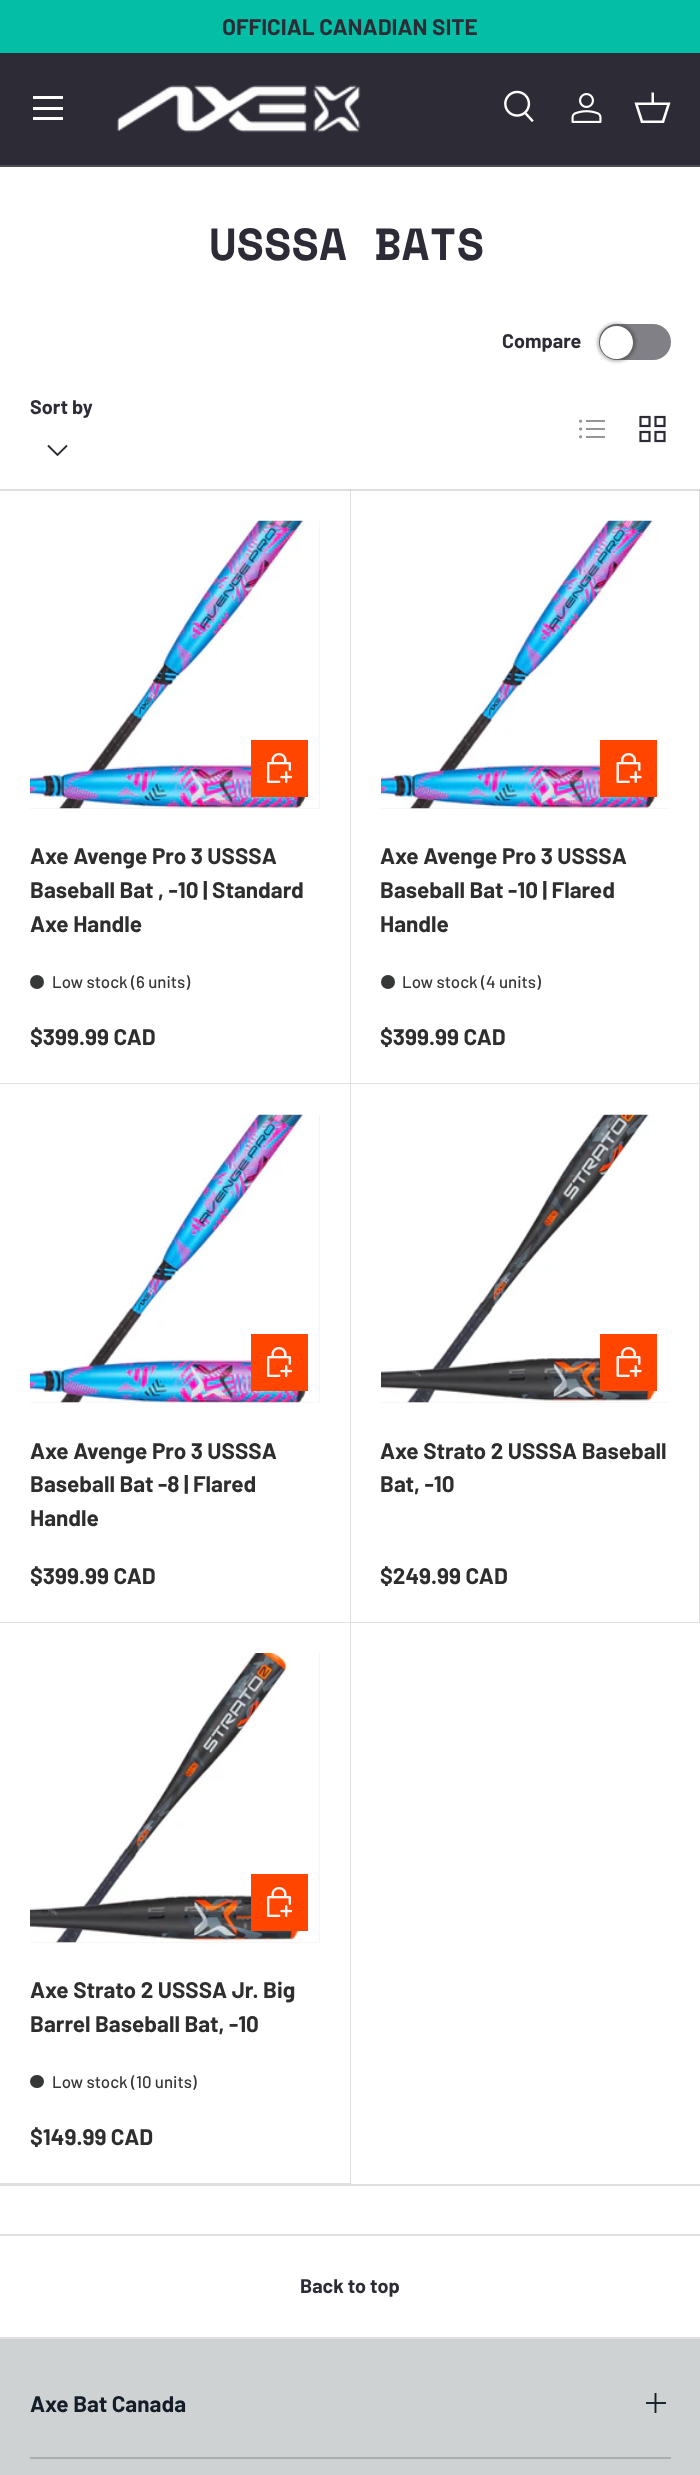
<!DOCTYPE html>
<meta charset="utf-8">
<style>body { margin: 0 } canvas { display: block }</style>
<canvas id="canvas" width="700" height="2475"></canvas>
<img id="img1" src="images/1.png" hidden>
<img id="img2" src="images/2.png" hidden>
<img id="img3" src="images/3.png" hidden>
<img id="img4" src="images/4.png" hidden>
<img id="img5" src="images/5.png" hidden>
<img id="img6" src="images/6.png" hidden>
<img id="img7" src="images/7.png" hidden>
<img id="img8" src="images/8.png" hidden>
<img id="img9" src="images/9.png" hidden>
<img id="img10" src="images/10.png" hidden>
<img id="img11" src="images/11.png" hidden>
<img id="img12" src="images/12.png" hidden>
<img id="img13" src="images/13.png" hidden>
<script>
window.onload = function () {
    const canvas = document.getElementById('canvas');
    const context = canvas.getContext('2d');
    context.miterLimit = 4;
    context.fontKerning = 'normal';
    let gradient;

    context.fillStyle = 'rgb(255, 255, 255)';
    context.fillRect(0, 0, 700, 2475);
    context.fillStyle = 'rgb(4, 191, 165)';
    context.fillRect(0, 0, 700, 53);
    context.fillStyle = 'rgb(44, 43, 54)';
    context.fillRect(0, 53, 700, 112);
    context.fillStyle = 'rgb(76, 75, 84)';
    context.fillRect(0, 165, 700, 2);
    context.fillStyle = 'rgb(255, 255, 255)';
    context.fillRect(33, 96, 30, 3);
    context.fillRect(33, 117, 30, 3);
    context.fillRect(33, 107, 30, 3);
    context.drawImage(document.getElementById('img1'), 116, 85, 245, 48);
    context.drawImage(document.getElementById('img2'), 504, 90, 30, 32);
    context.drawImage(document.getElementById('img3'), 571, 93, 31, 30);
    context.beginPath();
    context.moveTo(651.5, 102.5);
    context.lineTo(651.5, 92.5);
    context.lineTo(654, 92.5);
    context.lineTo(654, 102.5);
    context.lineTo(670.5, 102.5);
    context.lineTo(664, 123);
    context.lineTo(641, 123);
    context.lineTo(634.5, 102.5);
    context.closePath();
    context.moveTo(638, 105);
    context.lineTo(643, 120.5);
    context.lineTo(662, 120.5);
    context.lineTo(667, 105);
    context.closePath();
    context.fill();
    context.fillStyle = 'rgb(128, 128, 134)';
    context.beginPath();
    context.roundRect(599, 324, 72, 36, 18);
    context.fill();
    context.fillStyle = 'rgba(0, 0, 0, 0.25)';
    context.filter = 'blur(1.5px)';
    context.beginPath();
    context.roundRect(597, 323, 39, 39, 19.5);
    context.fill();
    context.filter = 'none';
    context.fillStyle = 'rgb(255, 255, 255)';
    context.beginPath();
    context.arc(616.5, 342.5, 16.5, 0, 2 * Math.PI);
    context.fill();
    context.beginPath();
    context.moveTo(67, 445.5);
    context.lineTo(57.5, 455);
    context.lineTo(48, 445.5);
    context.strokeStyle = 'rgb(44, 43, 54)';
    context.lineWidth = 1.9;
    context.stroke();
    context.drawImage(document.getElementById('img4'), 579, 419, 26, 20);
    context.drawImage(document.getElementById('img5'), 639, 415, 27, 28);
    context.fillStyle = 'rgb(223, 223, 225)';
    context.fillRect(0, 489, 700, 2);
    context.fillRect(0, 2184, 700, 2);
    context.fillStyle = 'rgba(44, 43, 54, 0.15)';
    context.beginPath();
    context.moveTo(351, 490);
    context.lineTo(351, 1084);
    context.lineTo(350, 1083);
    context.lineTo(350, 490);
    context.closePath();
    context.fill();
    context.beginPath();
    context.moveTo(351, 1084);
    context.lineTo(0, 1084);
    context.lineTo(0, 1083);
    context.lineTo(350, 1083);
    context.closePath();
    context.fill();
    context.fillStyle = 'rgb(245, 245, 245)';
    context.fillRect(30, 521, 290, 288);
    context.drawImage(document.getElementById('img6'), 30, 520, 289, 289);
    gradient = context.createLinearGradient(150, 749, 306, 787);
    gradient.addColorStop(0.6, 'rgb(254, 106, 52)');
    gradient.addColorStop(0.6, 'rgb(255, 69, 0)');
    gradient.addColorStop(1, 'rgb(255, 69, 0)');
    context.fillStyle = gradient;
    context.fillRect(254, 743, 51, 51);
    context.strokeStyle = 'rgb(255, 69, 0)';
    context.lineWidth = 3;
    context.strokeRect(252.5, 741.5, 54, 54);
    context.drawImage(document.getElementById('img7'), 267, 753, 26, 31);
    context.fillStyle = 'rgb(54, 55, 55)';
    context.beginPath();
    context.arc(37, 982, 7, 0, 2 * Math.PI);
    context.fill();
    context.fillStyle = 'rgba(44, 43, 54, 0.15)';
    context.beginPath();
    context.moveTo(700, 490);
    context.lineTo(700, 1084);
    context.lineTo(699, 1083);
    context.lineTo(699, 490);
    context.closePath();
    context.fill();
    context.beginPath();
    context.moveTo(700, 1084);
    context.lineTo(351, 1084);
    context.lineTo(351, 1083);
    context.lineTo(699, 1083);
    context.closePath();
    context.fill();
    context.fillStyle = 'rgb(245, 245, 245)';
    context.fillRect(381, 808, 288, 1);
    context.drawImage(document.getElementById('img8'), 381, 520, 288, 289);
    gradient = context.createLinearGradient(499, 749, 656, 787);
    gradient.addColorStop(0.6, 'rgb(254, 106, 52)');
    gradient.addColorStop(0.6, 'rgb(255, 69, 0)');
    gradient.addColorStop(1, 'rgb(255, 69, 0)');
    context.fillStyle = gradient;
    context.fillRect(603, 743, 51, 51);
    context.strokeRect(601.5, 741.5, 54, 54);
    context.drawImage(document.getElementById('img9'), 616, 753, 26, 31);
    context.fillStyle = 'rgb(54, 55, 55)';
    context.beginPath();
    context.arc(388, 982, 7, 0, 2 * Math.PI);
    context.fill();
    context.fillStyle = 'rgb(223, 223, 225)';
    context.beginPath();
    context.moveTo(351, 1084);
    context.lineTo(351, 1623);
    context.lineTo(350, 1622);
    context.lineTo(350, 1084);
    context.closePath();
    context.fill();
    context.fillStyle = 'rgba(44, 43, 54, 0.15)';
    context.beginPath();
    context.moveTo(351, 1623);
    context.lineTo(0, 1623);
    context.lineTo(0, 1622);
    context.lineTo(350, 1622);
    context.closePath();
    context.fill();
    context.fillStyle = 'rgb(245, 245, 245)';
    context.fillRect(30, 1115, 290, 288);
    context.drawImage(document.getElementById('img10'), 30, 1114, 289, 289);
    gradient = context.createLinearGradient(150, 1343, 306, 1381);
    gradient.addColorStop(0.6, 'rgb(254, 106, 52)');
    gradient.addColorStop(0.6, 'rgb(255, 69, 0)');
    gradient.addColorStop(1, 'rgb(255, 69, 0)');
    context.fillStyle = gradient;
    context.fillRect(254, 1337, 51, 51);
    context.strokeRect(252.5, 1335.5, 54, 54);
    context.drawImage(document.getElementById('img7'), 267, 1347, 26, 31);
    context.fillStyle = 'rgb(223, 223, 225)';
    context.beginPath();
    context.moveTo(700, 1084);
    context.lineTo(700, 1623);
    context.lineTo(699, 1622);
    context.lineTo(699, 1084);
    context.closePath();
    context.fill();
    context.fillStyle = 'rgba(44, 43, 54, 0.15)';
    context.beginPath();
    context.moveTo(700, 1623);
    context.lineTo(351, 1623);
    context.lineTo(351, 1622);
    context.lineTo(699, 1622);
    context.closePath();
    context.fill();
    context.fillStyle = 'rgb(245, 245, 245)';
    context.fillRect(381, 1402, 288, 1);
    context.drawImage(document.getElementById('img11'), 381, 1114, 288, 289);
    gradient = context.createLinearGradient(499, 1343, 656, 1381);
    gradient.addColorStop(0.6, 'rgb(254, 106, 52)');
    gradient.addColorStop(0.6, 'rgb(255, 69, 0)');
    gradient.addColorStop(1, 'rgb(255, 69, 0)');
    context.fillStyle = gradient;
    context.fillRect(603, 1337, 51, 51);
    context.strokeRect(601.5, 1335.5, 54, 54);
    context.drawImage(document.getElementById('img9'), 616, 1347, 26, 31);
    context.fillStyle = 'rgb(223, 223, 225)';
    context.beginPath();
    context.moveTo(351, 1623);
    context.lineTo(351, 2184);
    context.lineTo(350, 2182);
    context.lineTo(350, 1623);
    context.closePath();
    context.fill();
    context.fillStyle = 'rgba(44, 43, 54, 0.15)';
    context.beginPath();
    context.moveTo(351, 2184);
    context.lineTo(0, 2184);
    context.lineTo(0, 2182);
    context.lineTo(350, 2182);
    context.closePath();
    context.fill();
    context.fillStyle = 'rgb(255, 255, 255)';
    context.fillRect(0, 2182, 350, 1);
    context.fillStyle = 'rgb(245, 245, 245)';
    context.fillRect(30, 1653, 290, 290);
    context.drawImage(document.getElementById('img12'), 30, 1653, 289, 290);
    gradient = context.createLinearGradient(150, 1883, 306, 1921);
    gradient.addColorStop(0.6, 'rgb(254, 106, 52)');
    gradient.addColorStop(0.6, 'rgb(255, 69, 0)');
    gradient.addColorStop(1, 'rgb(255, 69, 0)');
    context.fillStyle = gradient;
    context.fillRect(254, 1877, 51, 51);
    context.strokeRect(252.5, 1875.5, 54, 54);
    context.drawImage(document.getElementById('img7'), 267, 1887, 26, 31);
    context.fillStyle = 'rgb(54, 55, 55)';
    context.beginPath();
    context.roundRect(30, 2075, 14, 13, 6.5);
    context.fill();
    context.fillStyle = 'rgb(223, 223, 225)';
    context.fillRect(0, 2234, 700, 2);
    context.fillRect(0, 2337, 700, 2);
    context.fillStyle = 'rgb(207, 210, 211)';
    context.fillRect(0, 2339, 700, 136);
    context.fillStyle = 'rgb(169, 174, 177)';
    context.fillRect(30, 2457, 641, 2);
    context.drawImage(document.getElementById('img13'), 646, 2393, 20, 20);
    context.font = 'bold 22.5px Barlow';
    context.fillStyle = 'rgb(44, 43, 54)';
    context.fillText('OFFICIAL CANADIAN SITE', 222, 35);
    context.font = 'bold 45px Space Mono';
    context.fillText('USSSA BATS', 209, 260);
    context.font = 'bold 19.75px Barlow';
    context.fillText('Compare', 502, 348);
    context.fillText('Sort by', 30, 414);
    context.font = 'bold 22.5px Barlow';
    context.fillStyle = 'rgb(46, 46, 46)';
    context.fillText('Axe Avenge Pro 3 USSSA', 30, 864);
    context.fillText('Baseball Bat , -10 | Standard', 30, 898);
    context.fillText('Axe Handle', 30, 932);
    context.font = '500 16.9px Barlow';
    context.fillStyle = 'rgb(54, 55, 55)';
    context.fillText('Low stock (6 units)', 52, 988);
    context.font = 'bold 22.5px Barlow';
    context.fillStyle = 'rgb(46, 46, 46)';
    context.fillText('$399.99 CAD', 30, 1045);
    context.fillText('Axe Avenge Pro 3 USSSA', 380, 864);
    context.fillText('Baseball Bat -10 | Flared', 380, 898);
    context.fillText('Handle', 380, 932);
    context.font = '500 16.9px Barlow';
    context.fillStyle = 'rgb(54, 55, 55)';
    context.fillText('Low stock (4 units)', 402, 988);
    context.font = 'bold 22.5px Barlow';
    context.fillStyle = 'rgb(46, 46, 46)';
    context.fillText('$399.99 CAD', 380, 1045);
    context.fillText('Axe Avenge Pro 3 USSSA', 30, 1459);
    context.fillText('Baseball Bat -8 | Flared', 30, 1492);
    context.fillText('Handle', 30, 1526);
    context.fillText('$399.99 CAD', 30, 1584);
    context.fillText('Axe Strato 2 USSSA Baseball', 380, 1459);
    context.fillText('Bat, -10', 380, 1492);
    context.fillText('$249.99 CAD', 380, 1584);
    context.fillText('Axe Strato 2 USSSA Jr. Big', 30, 1998);
    context.fillText('Barrel Baseball Bat, -10', 30, 2032);
    context.font = '500 16.9px Barlow';
    context.fillStyle = 'rgb(54, 55, 55)';
    context.fillText('Low stock (10 units)', 52, 2088);
    context.font = 'bold 22.5px Barlow';
    context.fillStyle = 'rgb(46, 46, 46)';
    context.fillText('$149.99 CAD', 30, 2145);
    context.font = 'bold 19.75px Barlow';
    context.fillStyle = 'rgb(44, 43, 54)';
    context.fillText('Back to top', 300, 2293);
    context.font = 'bold 22.5px Barlow';
    context.fillStyle = 'rgb(19, 30, 41)';
    context.fillText('Axe Bat Canada', 30, 2412);
};
</script>
